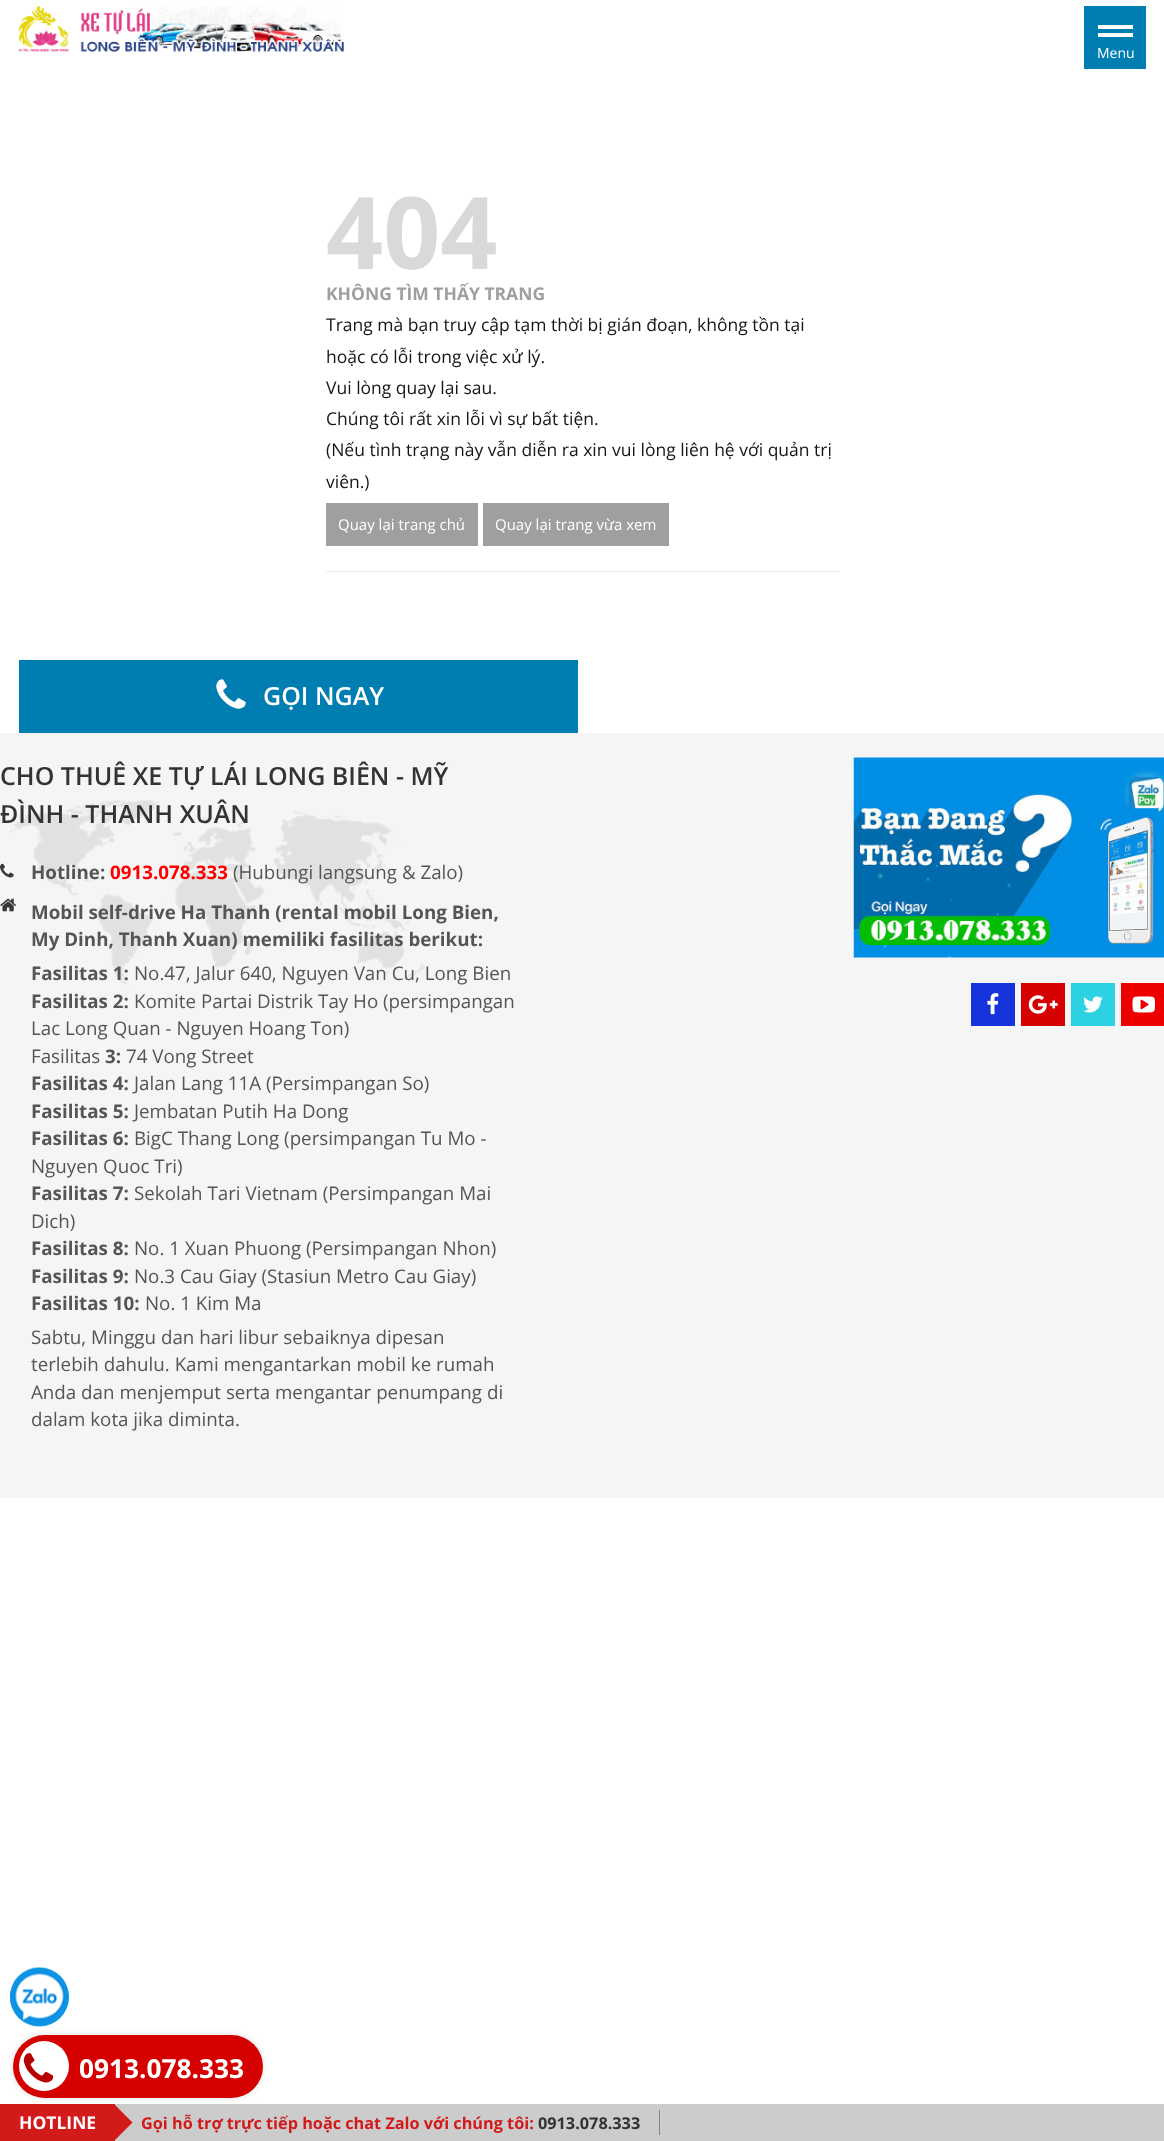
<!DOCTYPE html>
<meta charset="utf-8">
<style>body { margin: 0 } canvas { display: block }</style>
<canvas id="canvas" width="1164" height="2141"></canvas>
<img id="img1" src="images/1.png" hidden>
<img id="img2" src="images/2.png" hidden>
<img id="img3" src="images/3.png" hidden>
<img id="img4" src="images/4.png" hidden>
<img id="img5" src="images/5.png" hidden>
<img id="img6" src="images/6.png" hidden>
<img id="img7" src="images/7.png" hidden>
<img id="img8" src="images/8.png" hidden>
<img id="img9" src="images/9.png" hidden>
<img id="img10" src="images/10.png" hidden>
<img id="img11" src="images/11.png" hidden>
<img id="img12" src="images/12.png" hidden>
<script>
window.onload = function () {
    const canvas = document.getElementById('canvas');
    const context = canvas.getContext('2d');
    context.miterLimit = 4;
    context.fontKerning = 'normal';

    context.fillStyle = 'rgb(255, 255, 255)';
    context.fillRect(0, 0, 1164, 2141);
    context.drawImage(document.getElementById('img1'), 18, 6, 326, 47);
    context.fillStyle = 'rgb(0, 126, 177)';
    context.fillRect(1084, 6, 62, 63);
    context.fillStyle = 'rgb(255, 255, 255)';
    context.fillRect(1098, 25, 35, 4);
    context.fillRect(1098, 33, 35, 4);
    context.fillStyle = 'rgb(159, 159, 159)';
    context.fillRect(326, 503, 152, 43);
    context.fillRect(483, 503, 186, 43);
    context.fillStyle = 'rgb(238, 238, 238)';
    context.fillRect(326, 571, 514, 1);
    context.fillStyle = 'rgb(0, 126, 177)';
    context.fillRect(19, 660, 559, 73);
    context.drawImage(document.getElementById('img2'), 216, 679, 30, 30);
    context.fillStyle = 'rgb(245, 245, 245)';
    context.fillRect(0, 733, 1164, 765);
    context.drawImage(document.getElementById('img3'), 9, 800, 416, 185);
    context.drawImage(document.getElementById('img4'), 0, 863, 14, 15);
    context.drawImage(document.getElementById('img5'), 0, 898, 16, 14);
    context.drawImage(document.getElementById('img6'), 853, 757, 311, 201);
    context.fillStyle = 'rgb(22, 51, 220)';
    context.fillRect(971, 983, 44, 43);
    context.drawImage(document.getElementById('img7'), 987, 993, 12, 22);
    context.fillStyle = 'rgb(213, 1, 1)';
    context.fillRect(1021, 983, 44, 43);
    context.drawImage(document.getElementById('img8'), 1028, 995, 30, 19);
    context.fillStyle = 'rgb(44, 209, 226)';
    context.fillRect(1071, 983, 44, 43);
    context.drawImage(document.getElementById('img9'), 1083, 996, 20, 17);
    context.fillStyle = 'rgb(239, 0, 0)';
    context.fillRect(1121, 983, 43, 43);
    context.drawImage(document.getElementById('img10'), 1132, 996, 23, 17);
    context.fillStyle = 'rgb(221, 221, 221)';
    context.filter = 'blur(3px)';
    context.beginPath();
    context.roundRect(13, 2035, 250, 63, 31.5);
    context.fill();
    context.filter = 'none';
    context.fillStyle = 'rgb(204, 204, 204)';
    context.fillRect(115, 2104, 1049, 37);
    context.fillStyle = 'rgb(211, 26, 26)';
    context.fillRect(0, 2104, 115, 37);
    context.beginPath();
    context.moveTo(114, 2141);
    context.lineTo(114, 2104);
    context.lineTo(132.5, 2122.5);
    context.closePath();
    context.fill();
    context.fillStyle = 'rgb(143, 128, 128)';
    context.fillRect(659, 2110, 1, 25);
    context.fillStyle = 'rgb(5, 163, 229)';
    context.beginPath();
    context.roundRect(10, 1968, 59, 58, 29);
    context.fill();
    context.drawImage(document.getElementById('img11'), 10, 1967, 59, 60);
    context.fillStyle = 'rgb(213, 1, 1)';
    context.beginPath();
    context.roundRect(13, 2035, 250, 63, 31.5);
    context.fill();
    context.fillStyle = 'rgb(255, 255, 255)';
    context.beginPath();
    context.arc(44, 2066, 25, 0, 2 * Math.PI);
    context.fill();
    context.drawImage(document.getElementById('img12'), 23, 2053, 31, 30);
    context.font = '14px Open Sans';
    context.fillText('Menu', 1097, 58);
    context.font = 'bold 100px Open Sans';
    context.fillStyle = 'rgb(217, 217, 217)';
    context.fillText('404', 326, 269);
    context.font = 'bold 17.5px Open Sans';
    context.fillStyle = 'rgb(159, 159, 159)';
    context.fillText('KHÔNG TÌM THẤY TRANG', 326, 300);
    context.font = '17.5px Open Sans';
    context.fillStyle = 'rgb(22, 22, 22)';
    context.fillText('Trang mà bạn truy cập tạm thời bị gián đoạn, không tồn tại', 326, 331);
    context.fillText('hoặc có lỗi trong việc xử lý.', 326, 363);
    context.fillText('Vui lòng quay lại sau.', 326, 394);
    context.fillText('Chúng tôi rất xin lỗi vì sự bất tiện.', 326, 425);
    context.fillText('(Nếu tình trạng này vẫn diễn ra xin vui lòng liên hệ với quản trị', 326, 456);
    context.fillText('viên.)', 326, 488);
    context.font = '15px Open Sans';
    context.fillStyle = 'rgb(255, 255, 255)';
    context.fillText('Quay lại trang chủ', 338, 530);
    context.fillText('Quay lại trang vừa xem', 495, 530);
    context.font = '600 25px Open Sans';
    context.fillText('GỌI NGAY', 263, 705);
    context.fillStyle = 'rgb(51, 51, 51)';
    context.fillText('CHO THUÊ XE TỰ LÁI LONG BIÊN - MỸ', 0, 785);
    context.fillText('ĐÌNH - THANH XUÂN', 0, 823);
    context.font = 'bold 18.75px Open Sans';
    context.fillStyle = 'rgb(85, 85, 85)';
    context.fillText('Hotline:', 31, 879);
    context.fillStyle = 'rgb(255, 0, 0)';
    context.fillText('0913.078.333', 110, 879);
    context.font = '18.75px Open Sans';
    context.fillStyle = 'rgb(85, 85, 85)';
    context.fillText('(Hubungi langsung & Zalo)', 233, 879);
    context.font = 'bold 18.75px Open Sans';
    context.fillText('Mobil self-drive Ha Thanh (rental mobil Long Bien,', 31, 919);
    context.fillText('My Dinh, Thanh Xuan) memiliki fasilitas berikut:', 31, 946);
    context.fillText('Fasilitas 1:', 31, 980);
    context.font = '18.75px Open Sans';
    context.fillText('No.47, Jalur 640, Nguyen Van Cu, Long Bien', 134, 980);
    context.font = 'bold 18.75px Open Sans';
    context.fillText('Fasilitas 2:', 31, 1008);
    context.font = '18.75px Open Sans';
    context.fillText('Komite Partai Distrik Tay Ho (persimpangan', 134, 1008);
    context.fillText('Lac Long Quan - Nguyen Hoang Ton)', 31, 1035);
    context.fillText('Fasilitas', 31, 1063);
    context.font = 'bold 18.75px Open Sans';
    context.fillText('3:', 105, 1063);
    context.font = '18.75px Open Sans';
    context.fillText('74 Vong Street', 126, 1063);
    context.font = 'bold 18.75px Open Sans';
    context.fillText('Fasilitas 4:', 31, 1090);
    context.font = '18.75px Open Sans';
    context.fillText('Jalan Lang 11A (Persimpangan So)', 134, 1090);
    context.font = 'bold 18.75px Open Sans';
    context.fillText('Fasilitas 5:', 31, 1118);
    context.font = '18.75px Open Sans';
    context.fillText('Jembatan Putih Ha Dong', 134, 1118);
    context.font = 'bold 18.75px Open Sans';
    context.fillText('Fasilitas 6:', 31, 1145);
    context.font = '18.75px Open Sans';
    context.fillText('BigC Thang Long (persimpangan Tu Mo -', 134, 1145);
    context.fillText('Nguyen Quoc Tri)', 31, 1173);
    context.font = 'bold 18.75px Open Sans';
    context.fillText('Fasilitas 7:', 31, 1200);
    context.font = '18.75px Open Sans';
    context.fillText('Sekolah Tari Vietnam (Persimpangan Mai', 134, 1200);
    context.fillText('Dich)', 31, 1228);
    context.font = 'bold 18.75px Open Sans';
    context.fillText('Fasilitas 8:', 31, 1255);
    context.font = '18.75px Open Sans';
    context.fillText('No. 1 Xuan Phuong (Persimpangan Nhon)', 134, 1255);
    context.font = 'bold 18.75px Open Sans';
    context.fillText('Fasilitas 9:', 31, 1283);
    context.font = '18.75px Open Sans';
    context.fillText('No.3 Cau Giay (Stasiun Metro Cau Giay)', 134, 1283);
    context.font = 'bold 18.75px Open Sans';
    context.fillText('Fasilitas 10:', 31, 1310);
    context.font = '18.75px Open Sans';
    context.fillText('No. 1 Kim Ma', 145, 1310);
    context.fillText('Sabtu, Minggu dan hari libur sebaiknya dipesan', 31, 1344);
    context.fillText('terlebih dahulu. Kami mengantarkan mobil ke rumah', 31, 1371);
    context.fillText('Anda dan menjemput serta mengantar penumpang di', 31, 1399);
    context.fillText('dalam kota jika diminta.', 31, 1426);
    context.font = 'bold 17.5px Open Sans';
    context.fillStyle = 'rgb(255, 255, 255)';
    context.fillText('HOTLINE', 19, 2129);
    context.font = 'bold 16.25px Open Sans';
    context.fillStyle = 'rgb(211, 26, 26)';
    context.fillText('Gọi hỗ trợ trực tiếp hoặc chat Zalo với chúng tôi:', 141, 2129);
    context.fillStyle = 'rgb(51, 51, 51)';
    context.fillText('0913.078.333', 538, 2129);
    context.font = 'bold 26.25px Open Sans';
    context.fillStyle = 'rgb(255, 255, 255)';
    context.fillText('0913.078.333', 79, 2078);
};
</script>
